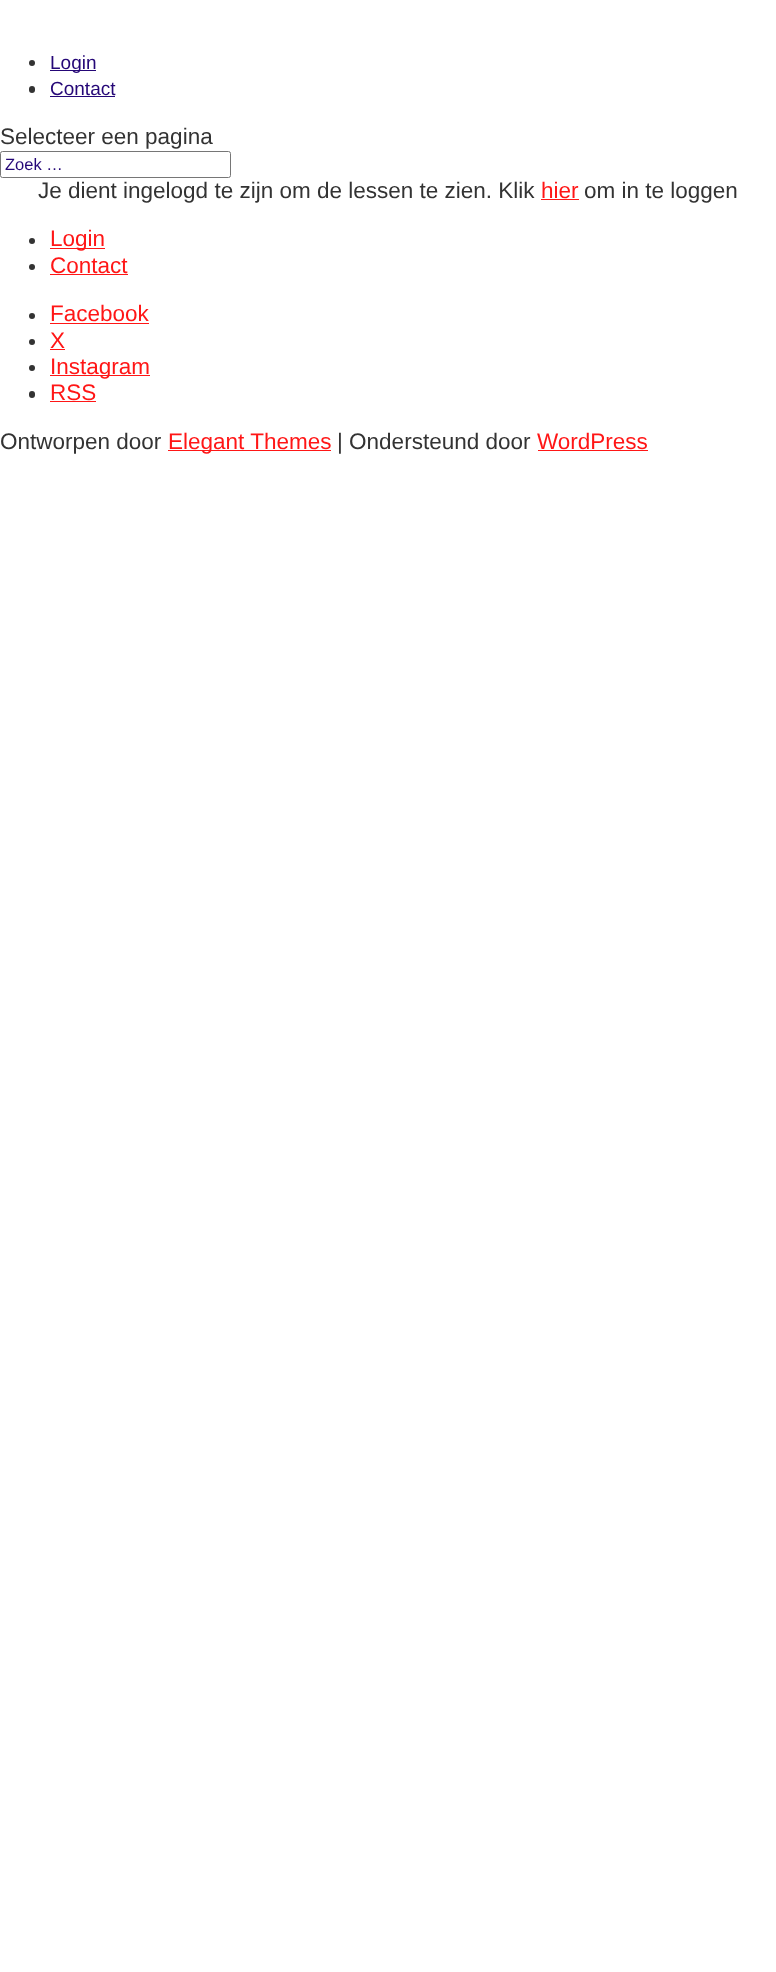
<!DOCTYPE html>
<meta charset="utf-8">
<style>body { margin: 0 } canvas { display: block }</style>
<canvas id="canvas" width="776" height="1972"></canvas>
<script>
window.onload = function () {
    const canvas = document.getElementById('canvas');
    const context = canvas.getContext('2d');
    context.miterLimit = 4;
    context.fontKerning = 'normal';

    context.fillStyle = 'rgb(255, 255, 255)';
    context.fillRect(0, 0, 776, 1972);
    context.fillStyle = 'rgb(51, 51, 51)';
    context.beginPath();
    context.arc(32, 63, 3, 0, 2 * Math.PI);
    context.fill();
    context.fillStyle = 'rgb(37, 7, 119)';
    context.fillRect(50, 70, 46, 1);
    context.fillStyle = 'rgb(51, 51, 51)';
    context.beginPath();
    context.roundRect(29, 86, 6, 7, 3);
    context.fill();
    context.fillStyle = 'rgb(37, 7, 119)';
    context.fillRect(50, 96, 65, 1);
    context.beginPath();
    context.roundRect(0.5, 151.5, 230, 26, 2);
    context.strokeStyle = 'rgb(118, 118, 118)';
    context.stroke();
    context.fillStyle = 'rgb(255, 22, 22)';
    context.fillRect(541, 199, 38, 1);
    context.fillStyle = 'rgb(51, 51, 51)';
    context.beginPath();
    context.arc(32, 241, 3, 0, 2 * Math.PI);
    context.fill();
    context.fillStyle = 'rgb(255, 22, 22)';
    context.fillRect(50, 248, 55, 1);
    context.fillStyle = 'rgb(51, 51, 51)';
    context.beginPath();
    context.arc(32, 267, 3, 0, 2 * Math.PI);
    context.fill();
    context.fillStyle = 'rgb(255, 22, 22)';
    context.fillRect(50, 274, 78, 1);
    context.fillStyle = 'rgb(51, 51, 51)';
    context.beginPath();
    context.arc(32, 316, 3, 0, 2 * Math.PI);
    context.fill();
    context.fillStyle = 'rgb(255, 22, 22)';
    context.fillRect(50, 323, 99, 1);
    context.fillStyle = 'rgb(51, 51, 51)';
    context.beginPath();
    context.arc(32, 342, 3, 0, 2 * Math.PI);
    context.fill();
    context.fillStyle = 'rgb(255, 22, 22)';
    context.fillRect(50, 349, 15, 1);
    context.fillStyle = 'rgb(51, 51, 51)';
    context.beginPath();
    context.arc(32, 368, 3, 0, 2 * Math.PI);
    context.fill();
    context.fillStyle = 'rgb(255, 22, 22)';
    context.fillRect(50, 375, 100, 1);
    context.fillStyle = 'rgb(51, 51, 51)';
    context.beginPath();
    context.roundRect(29, 391, 6, 7, 3);
    context.fill();
    context.fillStyle = 'rgb(255, 22, 22)';
    context.fillRect(50, 401, 46, 1);
    context.fillRect(168, 450, 163, 1);
    context.fillRect(538, 450, 110, 1);
    context.font = '19px Liberation Sans';
    context.fillStyle = 'rgb(37, 7, 119)';
    context.fillText('Login', 50, 69);
    context.fillText('Contact', 50, 95);
    context.font = '22.5px Liberation Sans';
    context.fillStyle = 'rgb(51, 51, 51)';
    context.fillText('Selecteer een pagina', 0, 144);
    context.font = '16.5px Liberation Sans';
    context.fillStyle = 'rgb(37, 7, 119)';
    context.fillText('Zoek …', 5, 170);
    context.font = '22.5px Liberation Sans';
    context.fillStyle = 'rgb(51, 51, 51)';
    context.fillText('Je dient ingelogd te zijn om de lessen te zien. Klik', 38, 198);
    context.fillStyle = 'rgb(255, 22, 22)';
    context.fillText('hier', 541, 198);
    context.fillStyle = 'rgb(51, 51, 51)';
    context.fillText('om in te loggen', 584, 198);
    context.fillStyle = 'rgb(255, 22, 22)';
    context.fillText('Login', 50, 246);
    context.fillText('Contact', 50, 273);
    context.fillText('Facebook', 50, 321);
    context.fillText('X', 50, 348);
    context.fillText('Instagram', 50, 374);
    context.fillText('RSS', 50, 400);
    context.fillStyle = 'rgb(51, 51, 51)';
    context.fillText('Ontworpen door', 0, 449);
    context.fillStyle = 'rgb(255, 22, 22)';
    context.fillText('Elegant Themes', 168, 449);
    context.fillStyle = 'rgb(51, 51, 51)';
    context.fillText('| Ondersteund door', 337, 449);
    context.fillStyle = 'rgb(255, 22, 22)';
    context.fillText('WordPress', 537, 449);
};
</script>
